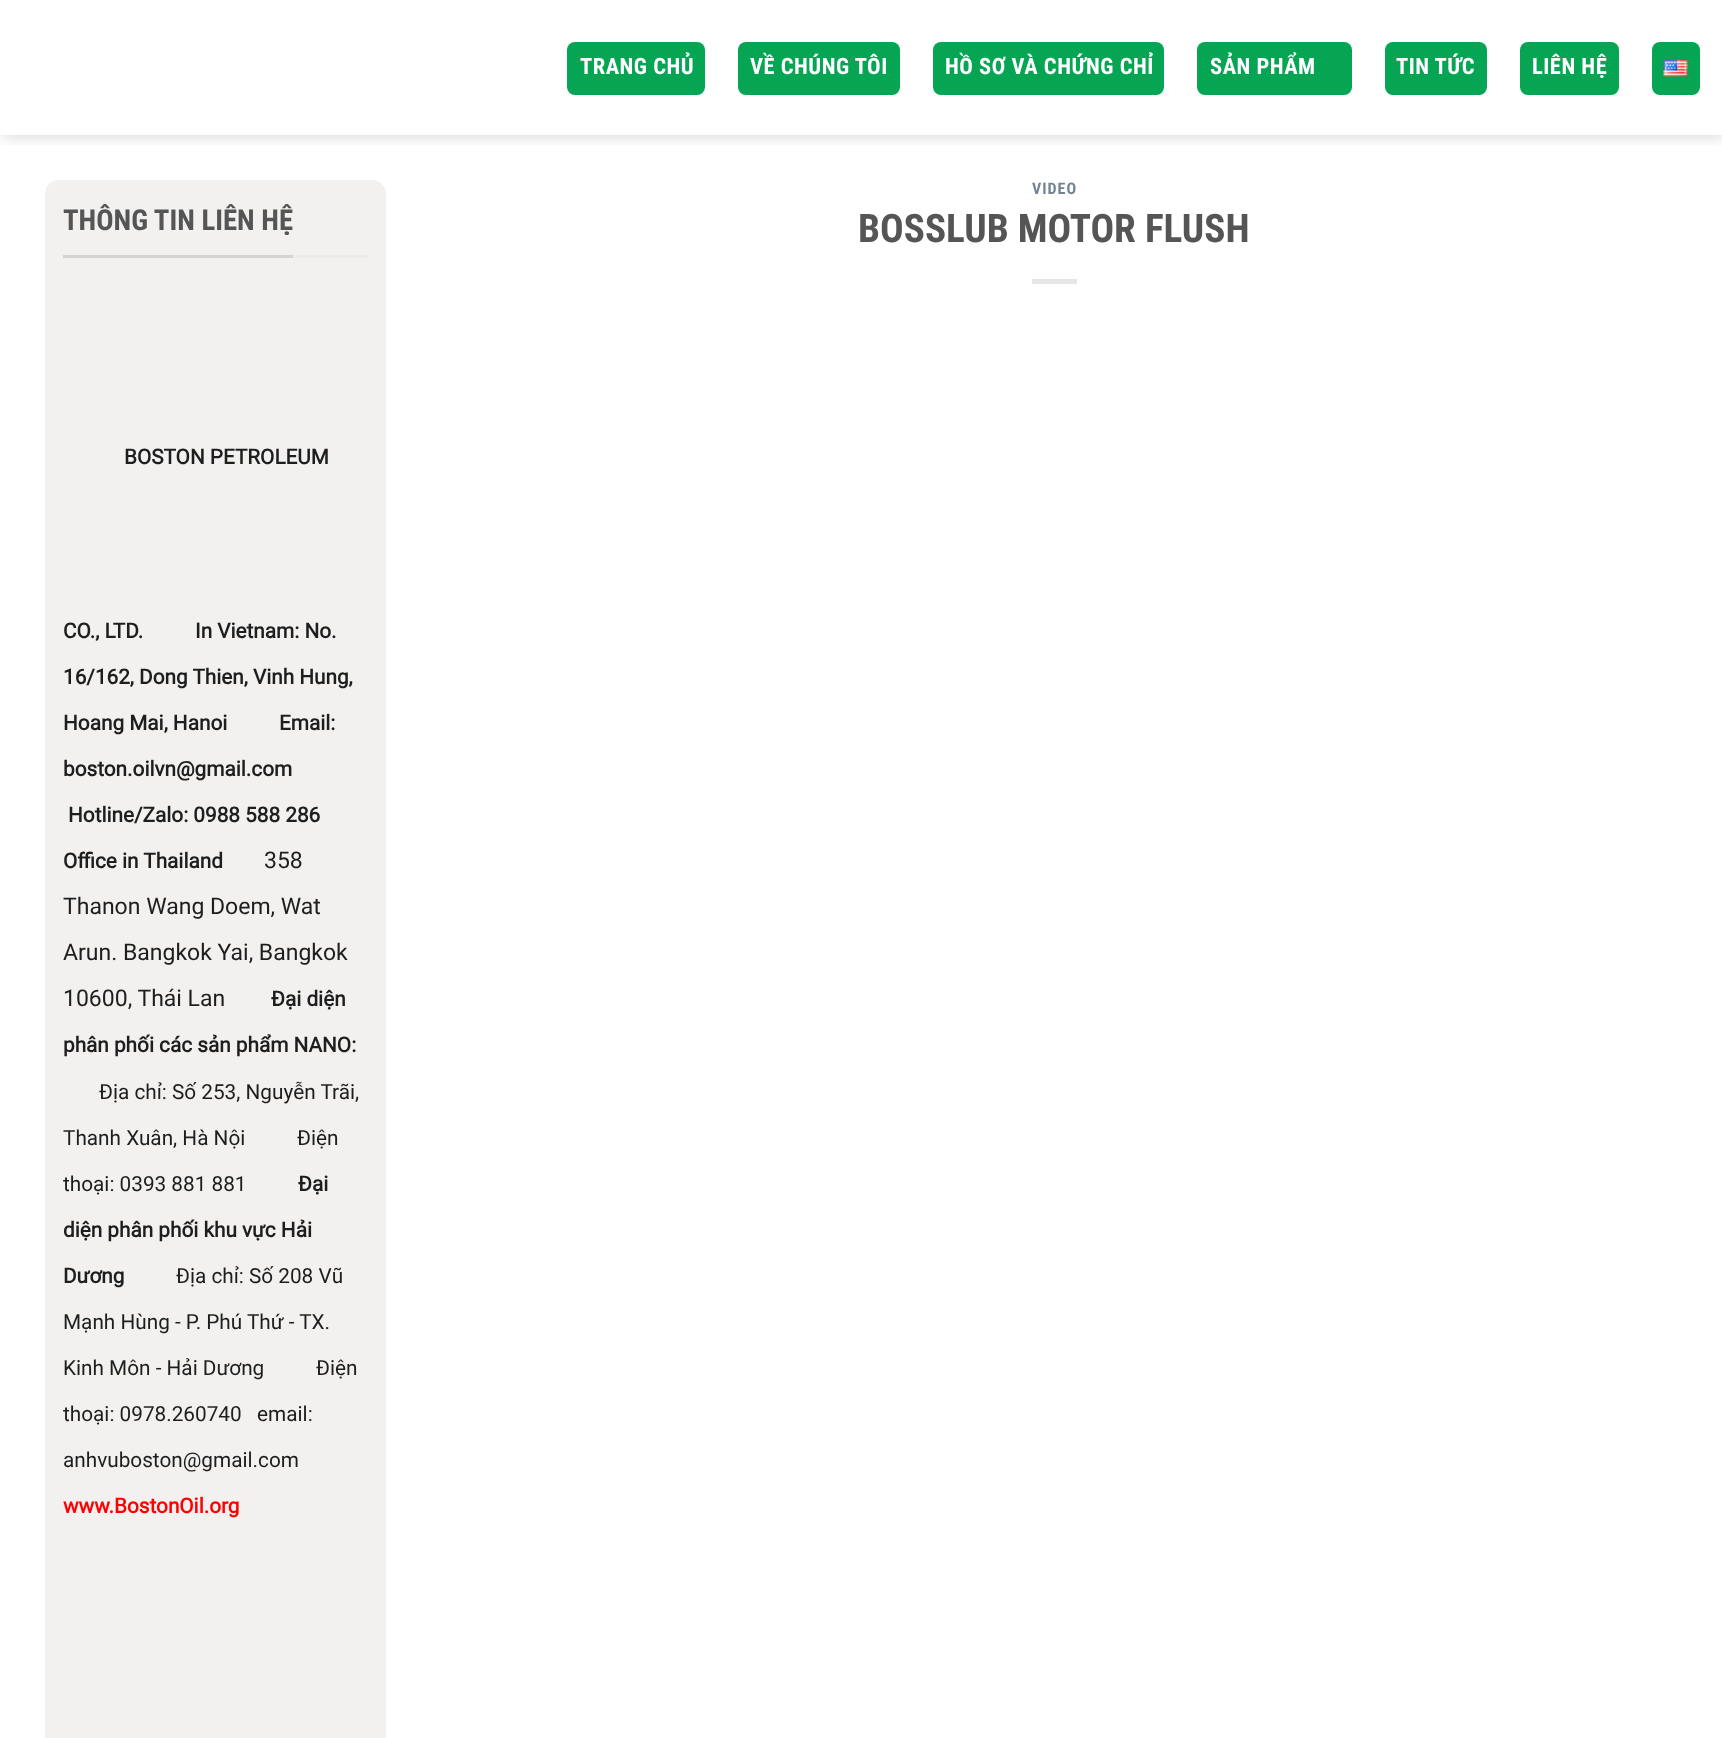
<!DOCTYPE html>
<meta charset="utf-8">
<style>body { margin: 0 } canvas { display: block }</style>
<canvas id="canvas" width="1722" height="1738"></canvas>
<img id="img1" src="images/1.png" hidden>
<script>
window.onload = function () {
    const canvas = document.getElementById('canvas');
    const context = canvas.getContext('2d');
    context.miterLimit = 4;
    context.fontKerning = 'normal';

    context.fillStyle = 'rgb(255, 255, 255)';
    context.fillRect(0, 0, 1722, 1738);
    context.save();
    context.beginPath();
    context.rect(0, 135, 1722, 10);
    context.clip();
    context.fillStyle = 'rgba(0, 0, 0, 0.15)';
    context.filter = 'blur(7.5px)';
    context.beginPath();
    context.rect(2, 2, 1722, 135);
    context.fill();
    context.filter = 'none';
    context.restore();
    context.fillStyle = 'rgb(5, 165, 84)';
    context.beginPath();
    context.roundRect(567, 42, 138, 53, 8);
    context.fill();
    context.beginPath();
    context.roundRect(738, 42, 162, 53, 8);
    context.fill();
    context.beginPath();
    context.roundRect(933, 42, 231, 53, 8);
    context.fill();
    context.beginPath();
    context.roundRect(1197, 42, 155, 53, 8);
    context.fill();
    context.beginPath();
    context.roundRect(1385, 42, 102, 53, 8);
    context.fill();
    context.beginPath();
    context.roundRect(1520, 42, 99, 53, 8);
    context.fill();
    context.beginPath();
    context.roundRect(1652, 42, 48, 53, 8);
    context.fill();
    context.drawImage(document.getElementById('img1'), 1663, 60, 25, 17);
    context.fillStyle = 'rgb(242, 241, 240)';
    context.beginPath();
    context.roundRect(45, 180, 341, 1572, 14);
    context.fill();
    context.fillStyle = 'rgb(236, 236, 236)';
    context.fillRect(293, 255, 75, 3);
    context.fillStyle = 'rgb(212, 212, 212)';
    context.fillRect(63, 255, 230, 3);
    context.fillStyle = 'rgb(230, 230, 230)';
    context.fillRect(1032, 279, 45, 5);
    context.letterSpacing = '0.5px';
    context.font = 'bold 22.5px Roboto Condensed';
    context.fillStyle = 'rgb(255, 255, 255)';
    context.fillText('TRANG CHỦ', 580, 74);
    context.fillText('VỀ CHÚNG TÔI', 750, 74);
    context.fillText('HỒ SƠ VÀ CHỨNG CHỈ', 945, 74);
    context.fillText('SẢN PHẨM', 1210, 74);
    context.fillText('TIN TỨC', 1396, 74);
    context.fillText('LIÊN HỆ', 1532, 74);
    context.letterSpacing = '0px';
    context.font = 'bold 28.75px Roboto Condensed';
    context.fillStyle = 'rgb(85, 85, 85)';
    context.fillText('THÔNG TIN LIÊN HỆ', 63, 230);
    context.font = 'bold 20.75px Roboto';
    context.fillStyle = 'rgb(30, 30, 30)';
    context.fillText('BOSTON PETROLEUM', 124, 464);
    context.fillText('CO., LTD.', 63, 638);
    context.fillText('In Vietnam: No.', 195, 638);
    context.fillText('16/162, Dong Thien, Vinh Hung,', 63, 684);
    context.fillText('Hoang Mai, Hanoi', 63, 730);
    context.fillText('Email:', 279, 730);
    context.fillText('boston.oilvn@gmail.com', 63, 776);
    context.fillText('Hotline/Zalo: 0988 588 286', 68, 822);
    context.fillText('Office in Thailand', 63, 868);
    context.font = '23px Roboto';
    context.fillText('358', 264, 868);
    context.fillText('Thanon Wang Doem, Wat', 63, 914);
    context.fillText('Arun. Bangkok Yai, Bangkok', 63, 960);
    context.fillText('10600, Thái Lan', 63, 1006);
    context.font = 'bold 20.75px Roboto';
    context.fillText('Đại diện', 271, 1006);
    context.fillText('phân phối các sản phẩm NANO:', 63, 1052);
    context.font = '20.75px Roboto';
    context.fillText('Địa chỉ: Số 253, Nguyễn Trãi,', 99, 1099);
    context.fillText('Thanh Xuân, Hà Nội', 63, 1145);
    context.fillText('Điện', 297, 1145);
    context.fillText('thoại: 0393 881 881', 63, 1191);
    context.font = 'bold 20.75px Roboto';
    context.fillText('Đại', 298, 1191);
    context.fillText('diện phân phối khu vực Hải', 63, 1237);
    context.fillText('Dương', 63, 1283);
    context.font = '20.75px Roboto';
    context.fillText('Địa chỉ: Số 208 Vũ', 176, 1283);
    context.fillText('Mạnh Hùng - P. Phú Thứ - TX.', 63, 1329);
    context.fillText('Kinh Môn - Hải Dương', 63, 1375);
    context.fillText('Điện', 316, 1375);
    context.fillText('thoại: 0978.260740   email:', 63, 1421);
    context.fillText('anhvuboston@gmail.com', 63, 1467);
    context.font = 'bold 20.75px Roboto';
    context.fillStyle = 'rgb(255, 0, 0)';
    context.fillText('www.BostonOil.org', 63, 1513);
    context.letterSpacing = '1px';
    context.font = 'bold 16px Roboto Condensed';
    context.fillStyle = 'rgb(113, 132, 149)';
    context.fillText('VIDEO', 1032, 194);
    context.letterSpacing = '0px';
    context.font = 'bold 39.25px Roboto Condensed';
    context.fillStyle = 'rgb(85, 85, 85)';
    context.fillText('BOSSLUB MOTOR FLUSH', 858, 242);
};
</script>
